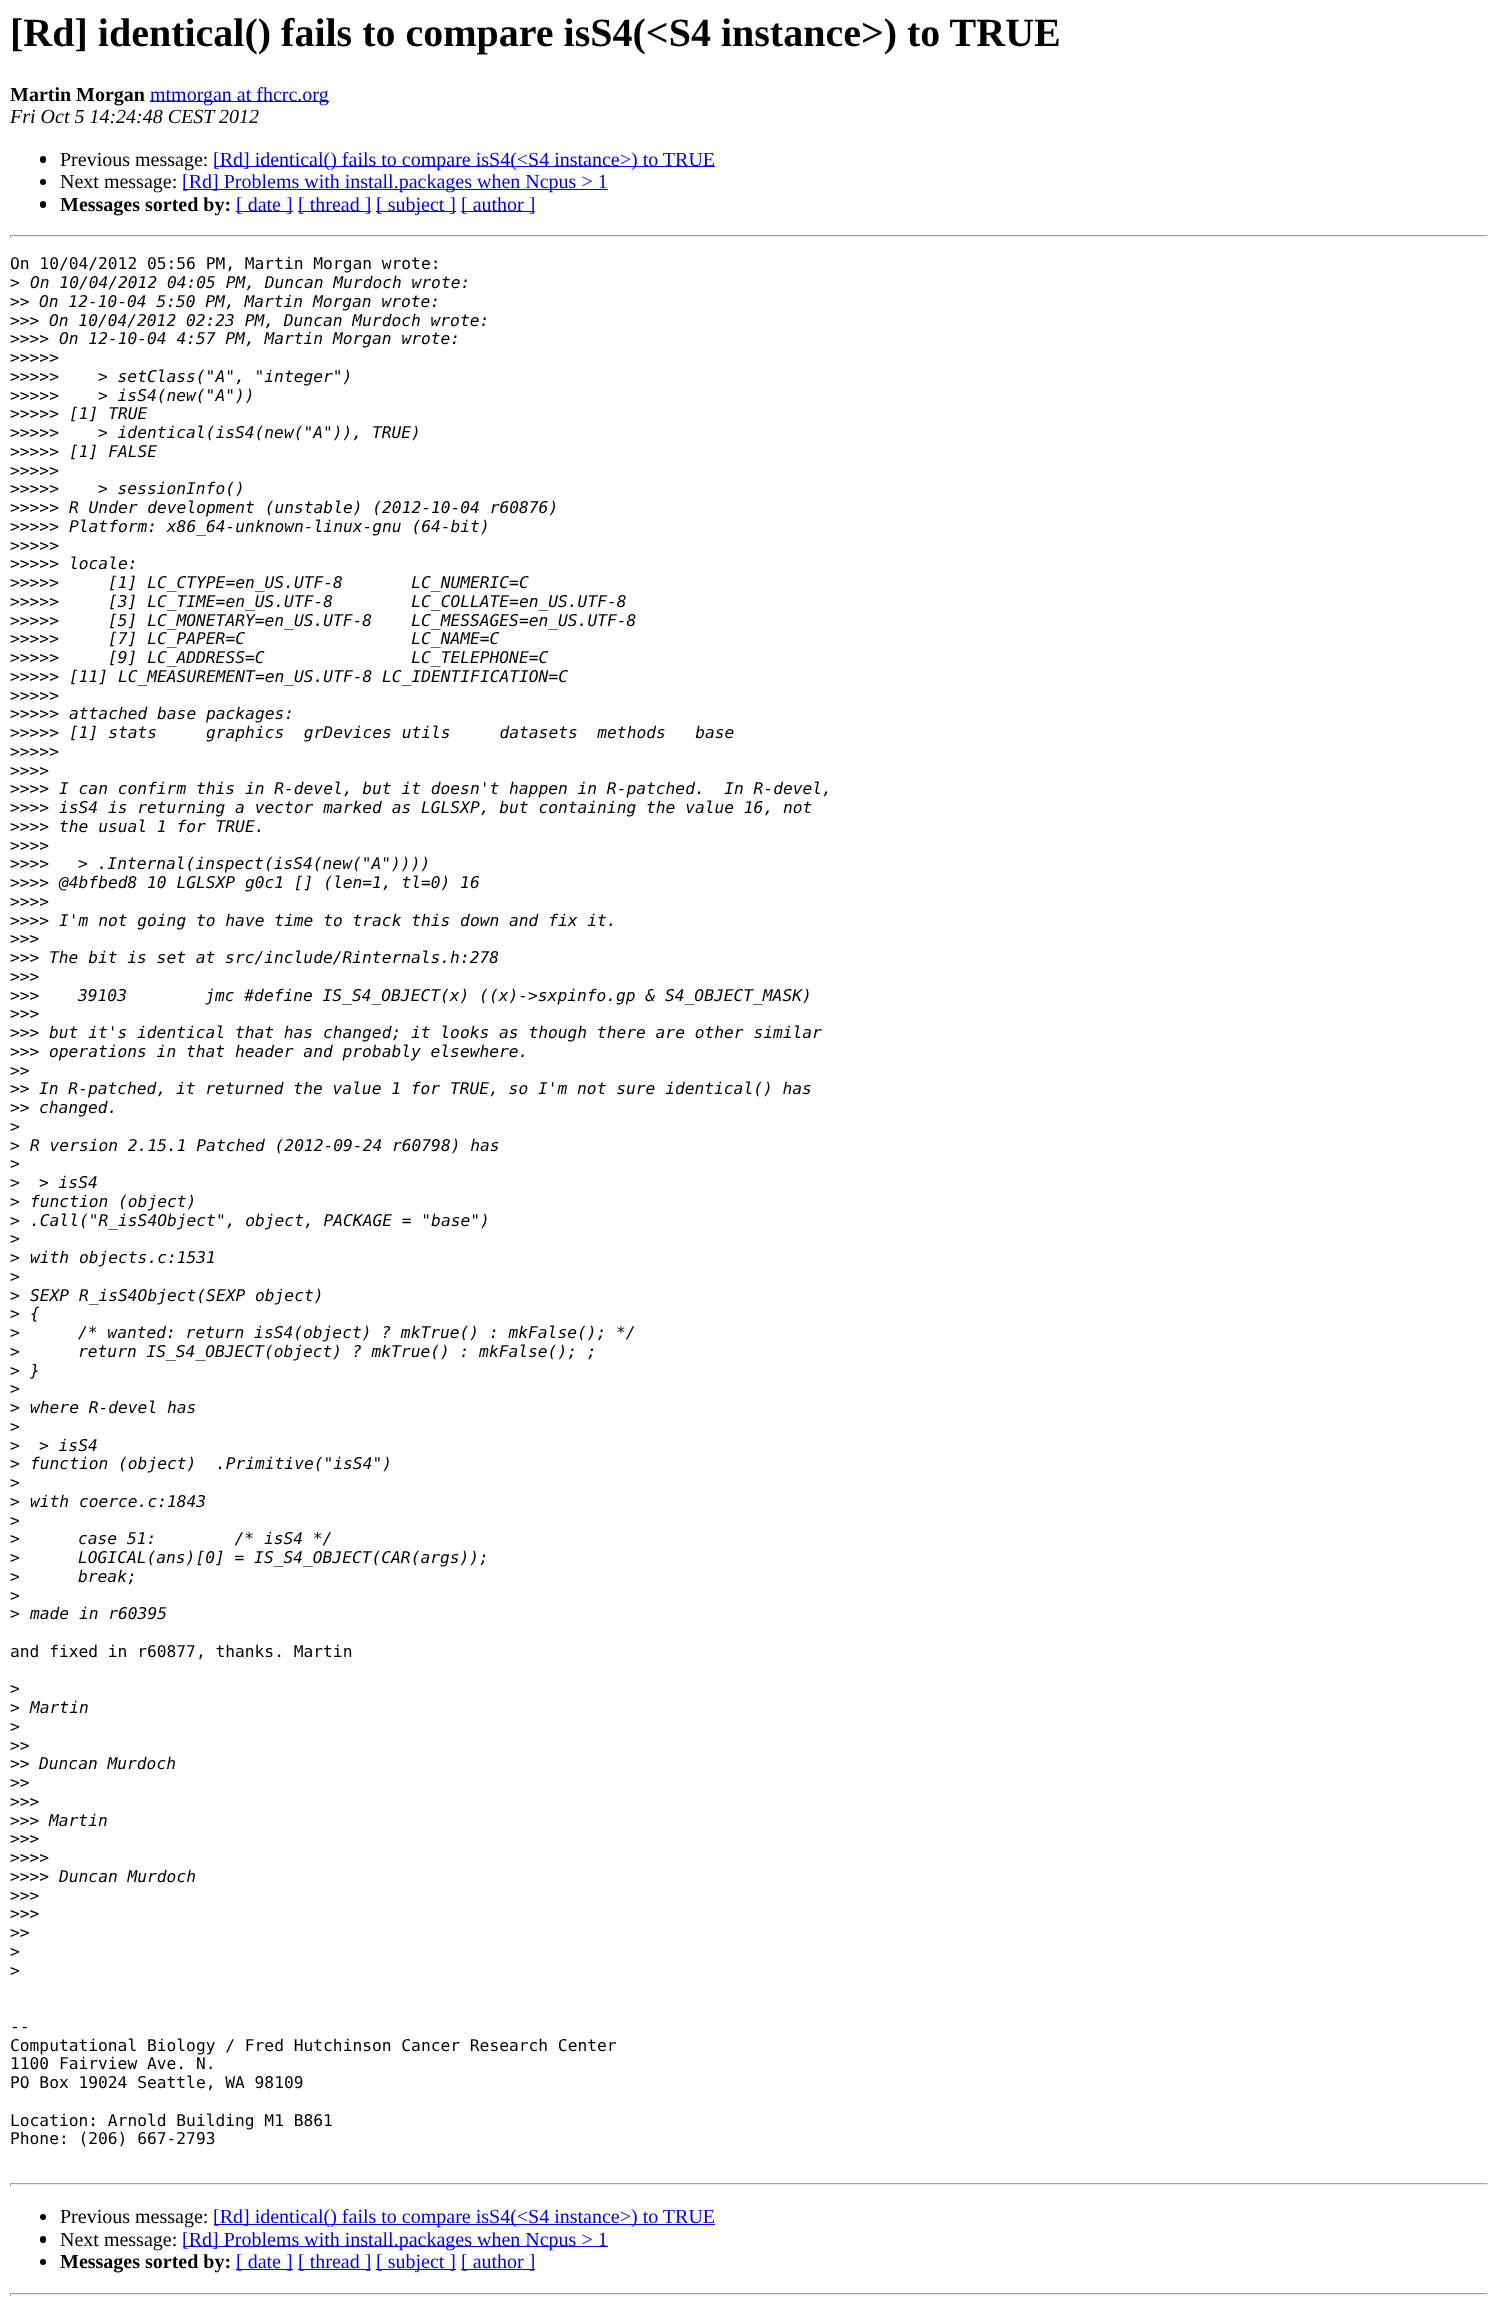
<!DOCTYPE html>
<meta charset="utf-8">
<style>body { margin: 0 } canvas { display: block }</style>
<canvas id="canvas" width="1497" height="2301"></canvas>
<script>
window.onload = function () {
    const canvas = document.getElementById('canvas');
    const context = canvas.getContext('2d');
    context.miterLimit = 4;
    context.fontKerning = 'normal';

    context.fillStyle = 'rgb(255, 255, 255)';
    context.fillRect(0, 0, 1497, 2301);
    context.fillStyle = 'rgb(0, 0, 238)';
    context.fillRect(150, 101, 179, 1);
    context.fillStyle = 'rgb(0, 0, 0)';
    context.beginPath();
    context.roundRect(40, 156, 6, 7, 3);
    context.fill();
    context.fillStyle = 'rgb(0, 0, 238)';
    context.fillRect(214, 166, 501, 1);
    context.fillStyle = 'rgb(0, 0, 0)';
    context.beginPath();
    context.arc(43, 182, 3, 0, 2 * Math.PI);
    context.fill();
    context.fillStyle = 'rgb(0, 0, 238)';
    context.fillRect(183, 189, 425, 1);
    context.fillStyle = 'rgb(0, 0, 0)';
    context.beginPath();
    context.roundRect(40, 201, 6, 7, 3);
    context.fill();
    context.fillStyle = 'rgb(0, 0, 238)';
    context.fillRect(236, 211, 57, 1);
    context.fillRect(298, 211, 73, 1);
    context.fillRect(376, 211, 80, 1);
    context.fillRect(461, 211, 74, 1);
    context.fillStyle = 'rgb(159, 159, 159)';
    context.fillRect(10, 235, 1478, 1);
    context.fillStyle = 'rgb(238, 238, 238)';
    context.fillRect(1486, 235, 1, 3);
    context.fillRect(10, 236, 1478, 1);
    context.fillStyle = 'rgb(159, 159, 159)';
    context.fillRect(10, 235, 1, 3);
    context.fillRect(10, 2183, 1478, 1);
    context.fillStyle = 'rgb(238, 238, 238)';
    context.fillRect(1486, 2183, 1, 3);
    context.fillRect(10, 2184, 1478, 1);
    context.fillStyle = 'rgb(159, 159, 159)';
    context.fillRect(10, 2183, 1, 3);
    context.fillStyle = 'rgb(0, 0, 0)';
    context.beginPath();
    context.arc(43, 2217, 3, 0, 2 * Math.PI);
    context.fill();
    context.fillStyle = 'rgb(0, 0, 238)';
    context.fillRect(214, 2224, 501, 1);
    context.fillStyle = 'rgb(0, 0, 0)';
    context.beginPath();
    context.roundRect(40, 2236, 6, 7, 3);
    context.fill();
    context.fillStyle = 'rgb(0, 0, 238)';
    context.fillRect(183, 2246, 425, 1);
    context.fillStyle = 'rgb(0, 0, 0)';
    context.beginPath();
    context.arc(43, 2262, 3, 0, 2 * Math.PI);
    context.fill();
    context.fillStyle = 'rgb(0, 0, 238)';
    context.fillRect(236, 2269, 57, 1);
    context.fillRect(298, 2269, 73, 1);
    context.fillRect(376, 2269, 80, 1);
    context.fillRect(461, 2269, 74, 1);
    context.fillStyle = 'rgb(159, 159, 159)';
    context.fillRect(10, 2293, 1478, 1);
    context.fillStyle = 'rgb(238, 238, 238)';
    context.fillRect(1486, 2293, 1, 3);
    context.fillRect(10, 2294, 1478, 1);
    context.fillStyle = 'rgb(159, 159, 159)';
    context.fillRect(10, 2293, 1, 3);
    context.font = 'bold 40px Liberation Serif';
    context.fillStyle = 'rgb(0, 0, 0)';
    context.fillText('[Rd] identical() fails to compare isS4(<S4 instance>) to TRUE', 10, 46);
    context.font = 'bold 20px Liberation Serif';
    context.fillText('Martin Morgan', 10, 101);
    context.font = '20px Liberation Serif';
    context.fillStyle = 'rgb(0, 0, 238)';
    context.fillText('mtmorgan at fhcrc.org', 150, 101);
    context.font = 'italic 20px Liberation Serif';
    context.fillStyle = 'rgb(0, 0, 0)';
    context.fillText('Fri Oct 5 14:24:48 CEST 2012', 10, 123);
    context.font = '20px Liberation Serif';
    context.fillText('Previous message:', 60, 166);
    context.fillStyle = 'rgb(0, 0, 238)';
    context.fillText('[Rd] identical() fails to compare isS4(<S4 instance>) to TRUE', 213, 166);
    context.fillStyle = 'rgb(0, 0, 0)';
    context.fillText('Next message:', 60, 188);
    context.fillStyle = 'rgb(0, 0, 238)';
    context.fillText('[Rd] Problems with install.packages when Ncpus > 1', 182, 188);
    context.font = 'bold 20px Liberation Serif';
    context.fillStyle = 'rgb(0, 0, 0)';
    context.fillText('Messages sorted by:', 60, 211);
    context.font = '20px Liberation Serif';
    context.fillStyle = 'rgb(0, 0, 238)';
    context.fillText('[ date ]', 236, 211);
    context.fillText('[ thread ]', 298, 211);
    context.fillText('[ subject ]', 376, 211);
    context.fillText('[ author ]', 461, 211);
    context.font = '16.25px DejaVu Sans Mono';
    context.fillStyle = 'rgb(0, 0, 0)';
    context.fillText('On 10/04/2012 05:56 PM, Martin Morgan wrote:', 10, 269);
    context.fillText('>', 10, 288);
    context.font = 'italic 16.25px DejaVu Sans Mono';
    context.fillText('On 10/04/2012 04:05 PM, Duncan Murdoch wrote:', 30, 288);
    context.font = '16.25px DejaVu Sans Mono';
    context.fillText('>>', 10, 307);
    context.font = 'italic 16.25px DejaVu Sans Mono';
    context.fillText('On 12-10-04 5:50 PM, Martin Morgan wrote:', 39, 307);
    context.font = '16.25px DejaVu Sans Mono';
    context.fillText('>>>', 10, 326);
    context.font = 'italic 16.25px DejaVu Sans Mono';
    context.fillText('On 10/04/2012 02:23 PM, Duncan Murdoch wrote:', 49, 326);
    context.font = '16.25px DejaVu Sans Mono';
    context.fillText('>>>>', 10, 344);
    context.font = 'italic 16.25px DejaVu Sans Mono';
    context.fillText('On 12-10-04 4:57 PM, Martin Morgan wrote:', 59, 344);
    context.font = '16.25px DejaVu Sans Mono';
    context.fillText('>>>>>', 10, 363);
    context.fillText('>>>>>', 10, 382);
    context.font = 'italic 16.25px DejaVu Sans Mono';
    context.fillText('> setClass("A", "integer")', 98, 382);
    context.font = '16.25px DejaVu Sans Mono';
    context.fillText('>>>>>', 10, 401);
    context.font = 'italic 16.25px DejaVu Sans Mono';
    context.fillText('> isS4(new("A"))', 98, 401);
    context.font = '16.25px DejaVu Sans Mono';
    context.fillText('>>>>>', 10, 419);
    context.font = 'italic 16.25px DejaVu Sans Mono';
    context.fillText('[1] TRUE', 69, 419);
    context.font = '16.25px DejaVu Sans Mono';
    context.fillText('>>>>>', 10, 438);
    context.font = 'italic 16.25px DejaVu Sans Mono';
    context.fillText('> identical(isS4(new("A")), TRUE)', 98, 438);
    context.font = '16.25px DejaVu Sans Mono';
    context.fillText('>>>>>', 10, 457);
    context.font = 'italic 16.25px DejaVu Sans Mono';
    context.fillText('[1] FALSE', 69, 457);
    context.font = '16.25px DejaVu Sans Mono';
    context.fillText('>>>>>', 10, 476);
    context.fillText('>>>>>', 10, 494);
    context.font = 'italic 16.25px DejaVu Sans Mono';
    context.fillText('> sessionInfo()', 98, 494);
    context.font = '16.25px DejaVu Sans Mono';
    context.fillText('>>>>>', 10, 513);
    context.font = 'italic 16.25px DejaVu Sans Mono';
    context.fillText('R Under development (unstable) (2012-10-04 r60876)', 69, 513);
    context.font = '16.25px DejaVu Sans Mono';
    context.fillText('>>>>>', 10, 532);
    context.font = 'italic 16.25px DejaVu Sans Mono';
    context.fillText('Platform: x86_64-unknown-linux-gnu (64-bit)', 69, 532);
    context.font = '16.25px DejaVu Sans Mono';
    context.fillText('>>>>>', 10, 551);
    context.fillText('>>>>>', 10, 569);
    context.font = 'italic 16.25px DejaVu Sans Mono';
    context.fillText('locale:', 69, 569);
    context.font = '16.25px DejaVu Sans Mono';
    context.fillText('>>>>>', 10, 588);
    context.font = 'italic 16.25px DejaVu Sans Mono';
    context.fillText('[1] LC_CTYPE=en_US.UTF-8       LC_NUMERIC=C', 108, 588);
    context.font = '16.25px DejaVu Sans Mono';
    context.fillText('>>>>>', 10, 607);
    context.font = 'italic 16.25px DejaVu Sans Mono';
    context.fillText('[3] LC_TIME=en_US.UTF-8        LC_COLLATE=en_US.UTF-8', 108, 607);
    context.font = '16.25px DejaVu Sans Mono';
    context.fillText('>>>>>', 10, 626);
    context.font = 'italic 16.25px DejaVu Sans Mono';
    context.fillText('[5] LC_MONETARY=en_US.UTF-8    LC_MESSAGES=en_US.UTF-8', 108, 626);
    context.font = '16.25px DejaVu Sans Mono';
    context.fillText('>>>>>', 10, 644);
    context.font = 'italic 16.25px DejaVu Sans Mono';
    context.fillText('[7] LC_PAPER=C                 LC_NAME=C', 108, 644);
    context.font = '16.25px DejaVu Sans Mono';
    context.fillText('>>>>>', 10, 663);
    context.font = 'italic 16.25px DejaVu Sans Mono';
    context.fillText('[9] LC_ADDRESS=C               LC_TELEPHONE=C', 108, 663);
    context.font = '16.25px DejaVu Sans Mono';
    context.fillText('>>>>>', 10, 682);
    context.font = 'italic 16.25px DejaVu Sans Mono';
    context.fillText('[11] LC_MEASUREMENT=en_US.UTF-8 LC_IDENTIFICATION=C', 69, 682);
    context.font = '16.25px DejaVu Sans Mono';
    context.fillText('>>>>>', 10, 701);
    context.fillText('>>>>>', 10, 719);
    context.font = 'italic 16.25px DejaVu Sans Mono';
    context.fillText('attached base packages:', 69, 719);
    context.font = '16.25px DejaVu Sans Mono';
    context.fillText('>>>>>', 10, 738);
    context.font = 'italic 16.25px DejaVu Sans Mono';
    context.fillText('[1] stats     graphics  grDevices utils     datasets  methods   base', 69, 738);
    context.font = '16.25px DejaVu Sans Mono';
    context.fillText('>>>>>', 10, 757);
    context.fillText('>>>>', 10, 776);
    context.fillText('>>>>', 10, 794);
    context.font = 'italic 16.25px DejaVu Sans Mono';
    context.fillText('I can confirm this in R-devel, but it doesn\'t happen in R-patched.  In R-devel,', 59, 794);
    context.font = '16.25px DejaVu Sans Mono';
    context.fillText('>>>>', 10, 813);
    context.font = 'italic 16.25px DejaVu Sans Mono';
    context.fillText('isS4 is returning a vector marked as LGLSXP, but containing the value 16, not', 59, 813);
    context.font = '16.25px DejaVu Sans Mono';
    context.fillText('>>>>', 10, 832);
    context.font = 'italic 16.25px DejaVu Sans Mono';
    context.fillText('the usual 1 for TRUE.', 59, 832);
    context.font = '16.25px DejaVu Sans Mono';
    context.fillText('>>>>', 10, 851);
    context.fillText('>>>>', 10, 869);
    context.font = 'italic 16.25px DejaVu Sans Mono';
    context.fillText('> .Internal(inspect(isS4(new("A"))))', 78, 869);
    context.font = '16.25px DejaVu Sans Mono';
    context.fillText('>>>>', 10, 888);
    context.font = 'italic 16.25px DejaVu Sans Mono';
    context.fillText('@4bfbed8 10 LGLSXP g0c1 [] (len=1, tl=0) 16', 59, 888);
    context.font = '16.25px DejaVu Sans Mono';
    context.fillText('>>>>', 10, 907);
    context.fillText('>>>>', 10, 926);
    context.font = 'italic 16.25px DejaVu Sans Mono';
    context.fillText('I\'m not going to have time to track this down and fix it.', 59, 926);
    context.font = '16.25px DejaVu Sans Mono';
    context.fillText('>>>', 10, 944);
    context.fillText('>>>', 10, 963);
    context.font = 'italic 16.25px DejaVu Sans Mono';
    context.fillText('The bit is set at src/include/Rinternals.h:278', 49, 963);
    context.font = '16.25px DejaVu Sans Mono';
    context.fillText('>>>', 10, 982);
    context.fillText('>>>', 10, 1001);
    context.font = 'italic 16.25px DejaVu Sans Mono';
    context.fillText('39103        jmc #define IS_S4_OBJECT(x) ((x)->sxpinfo.gp & S4_OBJECT_MASK)', 78, 1001);
    context.font = '16.25px DejaVu Sans Mono';
    context.fillText('>>>', 10, 1019);
    context.fillText('>>>', 10, 1038);
    context.font = 'italic 16.25px DejaVu Sans Mono';
    context.fillText('but it\'s identical that has changed; it looks as though there are other similar', 49, 1038);
    context.font = '16.25px DejaVu Sans Mono';
    context.fillText('>>>', 10, 1057);
    context.font = 'italic 16.25px DejaVu Sans Mono';
    context.fillText('operations in that header and probably elsewhere.', 49, 1057);
    context.font = '16.25px DejaVu Sans Mono';
    context.fillText('>>', 10, 1076);
    context.fillText('>>', 10, 1094);
    context.font = 'italic 16.25px DejaVu Sans Mono';
    context.fillText('In R-patched, it returned the value 1 for TRUE, so I\'m not sure identical() has', 39, 1094);
    context.font = '16.25px DejaVu Sans Mono';
    context.fillText('>>', 10, 1113);
    context.font = 'italic 16.25px DejaVu Sans Mono';
    context.fillText('changed.', 39, 1113);
    context.font = '16.25px DejaVu Sans Mono';
    context.fillText('>', 10, 1132);
    context.fillText('>', 10, 1151);
    context.font = 'italic 16.25px DejaVu Sans Mono';
    context.fillText('R version 2.15.1 Patched (2012-09-24 r60798) has', 30, 1151);
    context.font = '16.25px DejaVu Sans Mono';
    context.fillText('>', 10, 1169);
    context.fillText('>', 10, 1188);
    context.font = 'italic 16.25px DejaVu Sans Mono';
    context.fillText('> isS4', 39, 1188);
    context.font = '16.25px DejaVu Sans Mono';
    context.fillText('>', 10, 1207);
    context.font = 'italic 16.25px DejaVu Sans Mono';
    context.fillText('function (object)', 30, 1207);
    context.font = '16.25px DejaVu Sans Mono';
    context.fillText('>', 10, 1226);
    context.font = 'italic 16.25px DejaVu Sans Mono';
    context.fillText('.Call("R_isS4Object", object, PACKAGE = "base")', 30, 1226);
    context.font = '16.25px DejaVu Sans Mono';
    context.fillText('>', 10, 1244);
    context.fillText('>', 10, 1263);
    context.font = 'italic 16.25px DejaVu Sans Mono';
    context.fillText('with objects.c:1531', 30, 1263);
    context.font = '16.25px DejaVu Sans Mono';
    context.fillText('>', 10, 1282);
    context.fillText('>', 10, 1301);
    context.font = 'italic 16.25px DejaVu Sans Mono';
    context.fillText('SEXP R_isS4Object(SEXP object)', 30, 1301);
    context.font = '16.25px DejaVu Sans Mono';
    context.fillText('>', 10, 1319);
    context.font = 'italic 16.25px DejaVu Sans Mono';
    context.fillText('{', 30, 1319);
    context.font = '16.25px DejaVu Sans Mono';
    context.fillText('>', 10, 1338);
    context.font = 'italic 16.25px DejaVu Sans Mono';
    context.fillText('/* wanted: return isS4(object) ? mkTrue() : mkFalse(); */', 78, 1338);
    context.font = '16.25px DejaVu Sans Mono';
    context.fillText('>', 10, 1357);
    context.font = 'italic 16.25px DejaVu Sans Mono';
    context.fillText('return IS_S4_OBJECT(object) ? mkTrue() : mkFalse(); ;', 78, 1357);
    context.font = '16.25px DejaVu Sans Mono';
    context.fillText('>', 10, 1376);
    context.font = 'italic 16.25px DejaVu Sans Mono';
    context.fillText('}', 30, 1376);
    context.font = '16.25px DejaVu Sans Mono';
    context.fillText('>', 10, 1394);
    context.fillText('>', 10, 1413);
    context.font = 'italic 16.25px DejaVu Sans Mono';
    context.fillText('where R-devel has', 30, 1413);
    context.font = '16.25px DejaVu Sans Mono';
    context.fillText('>', 10, 1432);
    context.fillText('>', 10, 1451);
    context.font = 'italic 16.25px DejaVu Sans Mono';
    context.fillText('> isS4', 39, 1451);
    context.font = '16.25px DejaVu Sans Mono';
    context.fillText('>', 10, 1469);
    context.font = 'italic 16.25px DejaVu Sans Mono';
    context.fillText('function (object)  .Primitive("isS4")', 30, 1469);
    context.font = '16.25px DejaVu Sans Mono';
    context.fillText('>', 10, 1488);
    context.fillText('>', 10, 1507);
    context.font = 'italic 16.25px DejaVu Sans Mono';
    context.fillText('with coerce.c:1843', 30, 1507);
    context.font = '16.25px DejaVu Sans Mono';
    context.fillText('>', 10, 1526);
    context.fillText('>', 10, 1544);
    context.font = 'italic 16.25px DejaVu Sans Mono';
    context.fillText('case 51:        /* isS4 */', 78, 1544);
    context.font = '16.25px DejaVu Sans Mono';
    context.fillText('>', 10, 1563);
    context.font = 'italic 16.25px DejaVu Sans Mono';
    context.fillText('LOGICAL(ans)[0] = IS_S4_OBJECT(CAR(args));', 78, 1563);
    context.font = '16.25px DejaVu Sans Mono';
    context.fillText('>', 10, 1582);
    context.font = 'italic 16.25px DejaVu Sans Mono';
    context.fillText('break;', 78, 1582);
    context.font = '16.25px DejaVu Sans Mono';
    context.fillText('>', 10, 1601);
    context.fillText('>', 10, 1619);
    context.font = 'italic 16.25px DejaVu Sans Mono';
    context.fillText('made in r60395', 30, 1619);
    context.font = '16.25px DejaVu Sans Mono';
    context.fillText('and fixed in r60877, thanks. Martin', 10, 1657);
    context.fillText('>', 10, 1694);
    context.fillText('>', 10, 1713);
    context.font = 'italic 16.25px DejaVu Sans Mono';
    context.fillText('Martin', 30, 1713);
    context.font = '16.25px DejaVu Sans Mono';
    context.fillText('>', 10, 1732);
    context.fillText('>>', 10, 1751);
    context.fillText('>>', 10, 1769);
    context.font = 'italic 16.25px DejaVu Sans Mono';
    context.fillText('Duncan Murdoch', 39, 1769);
    context.font = '16.25px DejaVu Sans Mono';
    context.fillText('>>', 10, 1788);
    context.fillText('>>>', 10, 1807);
    context.fillText('>>>', 10, 1826);
    context.font = 'italic 16.25px DejaVu Sans Mono';
    context.fillText('Martin', 49, 1826);
    context.font = '16.25px DejaVu Sans Mono';
    context.fillText('>>>', 10, 1844);
    context.fillText('>>>>', 10, 1863);
    context.fillText('>>>>', 10, 1882);
    context.font = 'italic 16.25px DejaVu Sans Mono';
    context.fillText('Duncan Murdoch', 59, 1882);
    context.font = '16.25px DejaVu Sans Mono';
    context.fillText('>>>', 10, 1901);
    context.fillText('>>>', 10, 1919);
    context.fillText('>>', 10, 1938);
    context.fillText('>', 10, 1957);
    context.fillText('>', 10, 1976);
    context.fillText('--', 10, 2032);
    context.fillText('Computational Biology / Fred Hutchinson Cancer Research Center', 10, 2051);
    context.fillText('1100 Fairview Ave. N.', 10, 2069);
    context.fillText('PO Box 19024 Seattle, WA 98109', 10, 2088);
    context.fillText('Location: Arnold Building M1 B861', 10, 2126);
    context.fillText('Phone: (206) 667-2793', 10, 2144);
    context.font = '20px Liberation Serif';
    context.fillText('Previous message:', 60, 2223);
    context.fillStyle = 'rgb(0, 0, 238)';
    context.fillText('[Rd] identical() fails to compare isS4(<S4 instance>) to TRUE', 213, 2223);
    context.fillStyle = 'rgb(0, 0, 0)';
    context.fillText('Next message:', 60, 2246);
    context.fillStyle = 'rgb(0, 0, 238)';
    context.fillText('[Rd] Problems with install.packages when Ncpus > 1', 182, 2246);
    context.font = 'bold 20px Liberation Serif';
    context.fillStyle = 'rgb(0, 0, 0)';
    context.fillText('Messages sorted by:', 60, 2268);
    context.font = '20px Liberation Serif';
    context.fillStyle = 'rgb(0, 0, 238)';
    context.fillText('[ date ]', 236, 2268);
    context.fillText('[ thread ]', 298, 2268);
    context.fillText('[ subject ]', 376, 2268);
    context.fillText('[ author ]', 461, 2268);
};
</script>
